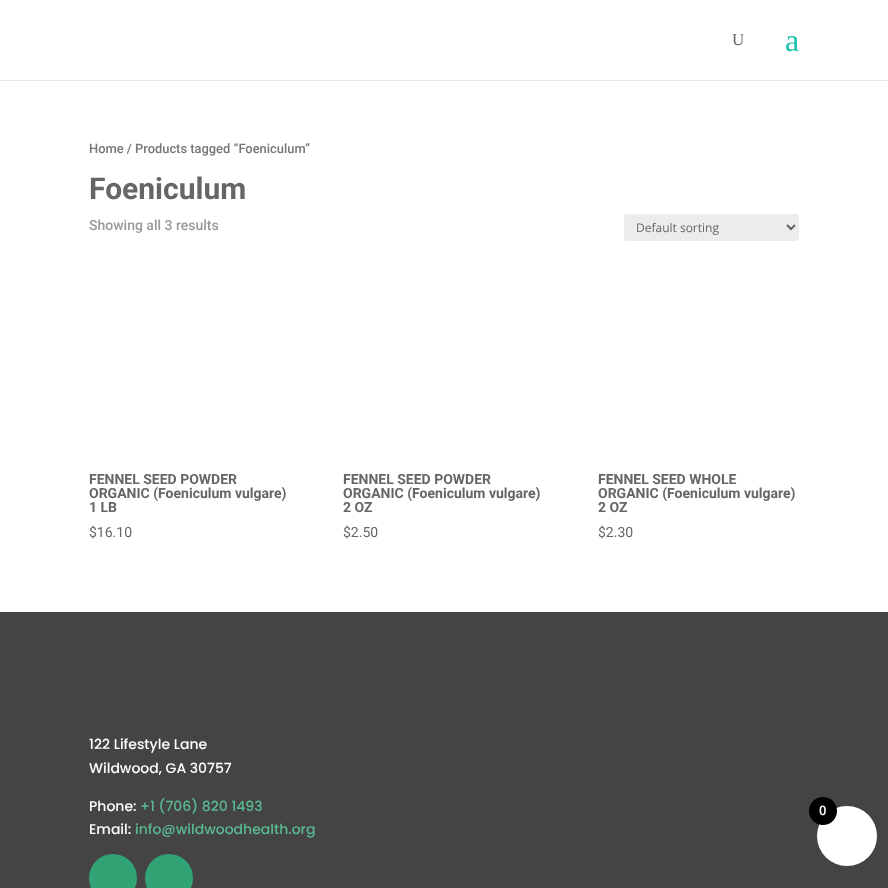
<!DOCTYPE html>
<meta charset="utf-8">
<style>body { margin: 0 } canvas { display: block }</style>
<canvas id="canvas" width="888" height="888"></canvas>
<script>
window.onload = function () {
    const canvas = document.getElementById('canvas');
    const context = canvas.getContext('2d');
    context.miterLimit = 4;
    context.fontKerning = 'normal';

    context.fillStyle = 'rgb(255, 255, 255)';
    context.fillRect(0, 0, 888, 888);
    context.fillStyle = 'rgb(230, 230, 230)';
    context.fillRect(0, 80, 888, 1);
    context.fillStyle = 'rgb(236, 236, 236)';
    context.beginPath();
    context.roundRect(624, 214, 175, 27, 3);
    context.fill();
    context.beginPath();
    context.moveTo(787, 225);
    context.lineTo(791, 229);
    context.lineTo(795, 225);
    context.strokeStyle = 'rgb(102, 102, 102)';
    context.lineWidth = 2;
    context.stroke();
    context.fillStyle = 'rgb(68, 68, 68)';
    context.fillRect(0, 612, 888, 276);
    context.fillStyle = 'rgb(50, 163, 116)';
    context.beginPath();
    context.arc(113, 878, 24, 0, 2 * Math.PI);
    context.fill();
    context.beginPath();
    context.arc(169, 878, 24, 0, 2 * Math.PI);
    context.fill();
    context.fillStyle = 'rgb(255, 255, 255)';
    context.beginPath();
    context.arc(847, 836, 30, 0, 2 * Math.PI);
    context.fill();
    context.fillStyle = 'rgb(0, 0, 0)';
    context.beginPath();
    context.arc(823, 811, 14, 0, 2 * Math.PI);
    context.fill();
    context.font = '17px Liberation Serif';
    context.fillStyle = 'rgb(102, 102, 102)';
    context.fillText('U', 732, 45);
    context.font = '32px Liberation Serif';
    context.fillStyle = 'rgb(29, 193, 171)';
    context.fillText('a', 785, 51);
    context.font = '500 12.9px Roboto';
    context.fillStyle = 'rgb(118, 118, 118)';
    context.fillText('Home / Products tagged “Foeniculum”', 89, 153);
    context.font = 'bold 30px Roboto';
    context.fillStyle = 'rgb(102, 102, 102)';
    context.fillText('Foeniculum', 89, 199);
    context.font = '500 14px Roboto';
    context.fillStyle = 'rgb(153, 153, 153)';
    context.fillText('Showing all 3 results', 89, 230);
    context.font = '12px Open Sans';
    context.fillStyle = 'rgb(102, 102, 102)';
    context.fillText('Default sorting', 636, 232);
    context.font = 'bold 14px Roboto';
    context.fillText('FENNEL SEED POWDER', 89, 484);
    context.fillText('ORGANIC (Foeniculum vulgare)', 89, 498);
    context.fillText('1 LB', 89, 512);
    context.font = '14px Roboto';
    context.fillText('$16.10', 89, 537);
    context.font = 'bold 14px Roboto';
    context.fillText('FENNEL SEED POWDER', 343, 484);
    context.fillText('ORGANIC (Foeniculum vulgare)', 343, 498);
    context.fillText('2 OZ', 343, 512);
    context.font = '14px Roboto';
    context.fillText('$2.50', 343, 537);
    context.font = 'bold 14px Roboto';
    context.fillText('FENNEL SEED WHOLE', 598, 484);
    context.fillText('ORGANIC (Foeniculum vulgare)', 598, 498);
    context.fillText('2 OZ', 598, 512);
    context.font = '14px Roboto';
    context.fillText('$2.30', 598, 537);
    context.font = '500 14px Poppins';
    context.fillStyle = 'rgb(255, 255, 255)';
    context.fillText('122 Lifestyle Lane', 89, 749);
    context.fillText('Wildwood, GA 30757', 89, 773);
    context.fillText('Phone:', 89, 811);
    context.fillStyle = 'rgb(90, 187, 147)';
    context.fillText('+1 (706) 820 1493', 140, 811);
    context.fillStyle = 'rgb(255, 255, 255)';
    context.fillText('Email:', 89, 834);
    context.fillStyle = 'rgb(90, 187, 147)';
    context.fillText('info@wildwoodhealth.org', 135, 834);
    context.font = '500 13px Roboto';
    context.fillStyle = 'rgb(255, 255, 255)';
    context.fillText('0', 819, 815);
};
</script>
